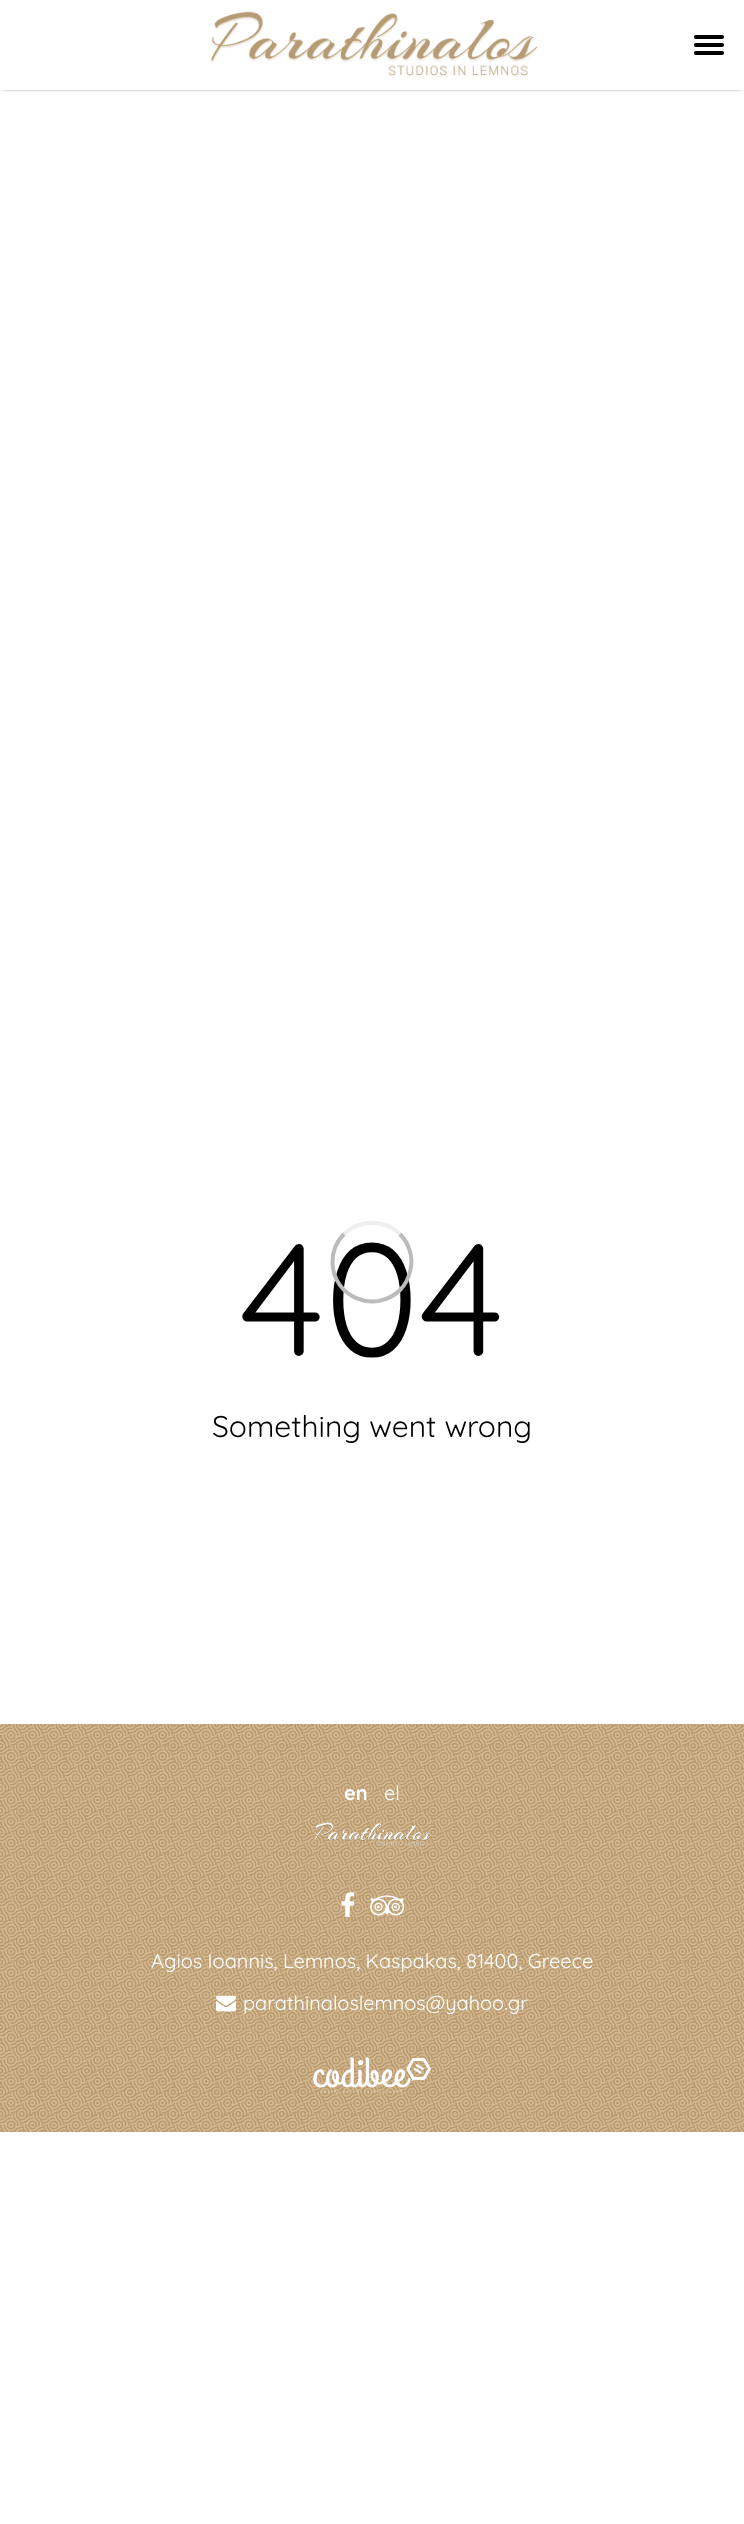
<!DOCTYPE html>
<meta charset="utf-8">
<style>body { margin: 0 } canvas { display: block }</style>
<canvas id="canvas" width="744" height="2524"></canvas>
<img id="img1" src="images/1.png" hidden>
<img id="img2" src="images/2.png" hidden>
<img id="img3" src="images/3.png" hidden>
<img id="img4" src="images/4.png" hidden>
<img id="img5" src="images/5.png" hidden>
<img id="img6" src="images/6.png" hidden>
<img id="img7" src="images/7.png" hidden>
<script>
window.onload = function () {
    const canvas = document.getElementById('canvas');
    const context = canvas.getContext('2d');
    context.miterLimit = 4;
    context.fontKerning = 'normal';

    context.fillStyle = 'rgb(255, 255, 255)';
    context.fillRect(0, 0, 744, 2524);
    context.save();
    context.beginPath();
    context.rect(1, 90, 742, 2);
    context.clip();
    context.fillStyle = 'rgb(0, 0, 0)';
    context.filter = 'blur(2px)';
    context.beginPath();
    context.rect(3, 4, 738, 84);
    context.fill();
    context.filter = 'none';
    context.restore();
    context.drawImage(document.getElementById('img1'), 210, 11, 328, 66);
    context.fillStyle = 'rgb(0, 0, 0)';
    context.beginPath();
    context.roundRect(694, 35, 30, 4, 2);
    context.fill();
    context.beginPath();
    context.roundRect(694, 43, 30, 4, 2);
    context.fill();
    context.beginPath();
    context.roundRect(694, 51, 30, 4, 2);
    context.fill();
    context.beginPath();
    context.moveTo(344, 1234);
    context.bezierCurveTo(359.5, 1219, 384.5, 1219, 400, 1234);
    context.strokeStyle = 'rgb(238, 238, 238)';
    context.lineWidth = 4;
    context.stroke();
    context.fillStyle = 'rgb(206, 174, 127)';
    context.fillRect(0, 1724, 744, 408);
    context.drawImage(document.getElementById('img2'), 0, 1724, 744, 408);
    context.drawImage(document.getElementById('img3'), 314, 1822, 117, 24);
    context.drawImage(document.getElementById('img4'), 341, 1892, 14, 25);
    context.drawImage(document.getElementById('img5'), 370, 1895, 35, 21);
    context.drawImage(document.getElementById('img6'), 216, 1995, 20, 17);
    context.drawImage(document.getElementById('img7'), 313, 2057, 118, 36);
    context.font = '160px Quicksand';
    context.fillStyle = 'rgb(0, 0, 0)';
    context.fillText('404', 240, 1356);
    context.beginPath();
    context.moveTo(400, 1234);
    context.bezierCurveTo(409, 1243.5, 413.5, 1257, 410.5, 1269.5);
    context.bezierCurveTo(409, 1277.5, 405.5, 1284.5, 400, 1290);
    context.bezierCurveTo(375, 1314.5, 332.5, 1297, 332.5, 1262);
    context.bezierCurveTo(332.5, 1251.5, 336.5, 1241.5, 344, 1234);
    context.strokeStyle = 'rgb(187, 187, 187)';
    context.stroke();
    context.font = '30px Quicksand';
    context.fillText('Something went wrong', 212, 1437);
    context.font = 'bold 20px Quicksand';
    context.fillStyle = 'rgb(255, 255, 255)';
    context.fillText('en', 344, 1800);
    context.font = '20px Quicksand';
    context.fillText('el', 384, 1800);
    context.fillText('Agios Ioannis, Lemnos, Kaspakas, 81400, Greece', 151, 1968);
    context.fillText('parathinaloslemnos@yahoo.gr', 243, 2010);
};
</script>
